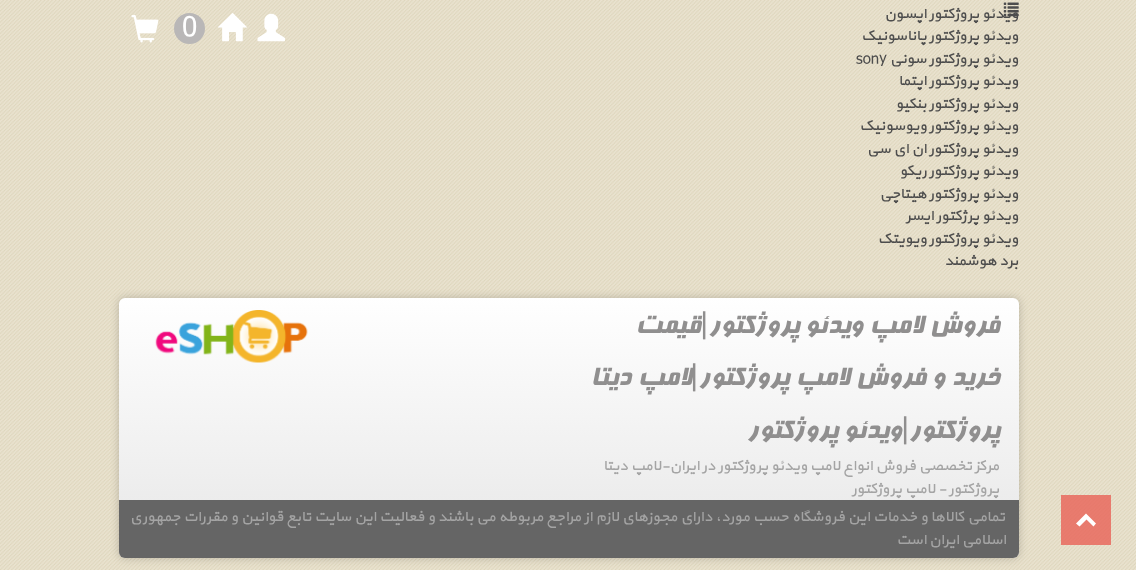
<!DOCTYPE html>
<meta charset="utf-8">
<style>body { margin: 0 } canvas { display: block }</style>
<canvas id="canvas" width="1136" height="570"></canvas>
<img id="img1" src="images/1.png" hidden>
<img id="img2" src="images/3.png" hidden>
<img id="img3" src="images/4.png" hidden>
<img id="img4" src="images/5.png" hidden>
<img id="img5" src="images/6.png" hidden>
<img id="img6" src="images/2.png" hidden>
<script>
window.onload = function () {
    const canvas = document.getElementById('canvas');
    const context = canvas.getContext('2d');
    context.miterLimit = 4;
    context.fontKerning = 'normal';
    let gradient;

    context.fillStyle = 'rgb(255, 255, 255)';
    context.fillRect(0, 0, 1136, 570);
    context.drawImage(document.getElementById('img1'), 0, 0, 1136, 570);
    context.drawImage(document.getElementById('img2'), 257, 13, 28, 29);
    context.drawImage(document.getElementById('img3'), 218, 13, 29, 29);
    context.fillStyle = 'rgb(185, 183, 183)';
    context.beginPath();
    context.arc(189.5, 28.5, 15.5, 0, 2 * Math.PI);
    context.fill();
    context.drawImage(document.getElementById('img4'), 131, 15, 28, 28);
    context.fillStyle = 'rgba(232, 98, 86, 0.8)';
    context.fillRect(1061, 495, 50, 50);
    context.fillStyle = 'rgb(255, 255, 255)';
    context.beginPath();
    context.moveTo(1086, 513.5);
    context.lineTo(1096, 523.5);
    context.lineTo(1093.5, 526.5);
    context.lineTo(1086.5, 519.5);
    context.lineTo(1079.5, 526.5);
    context.lineTo(1076, 523.5);
    context.closePath();
    context.fill();
    context.fillStyle = 'rgba(0, 0, 0, 0.2)';
    context.filter = 'blur(4px)';
    context.beginPath();
    context.roundRect(119, 298, 900, 260, 6);
    context.fill();
    context.filter = 'none';
    gradient = context.createLinearGradient(569, 297, 569, 558);
    gradient.addColorStop(0, 'rgb(255, 255, 255)');
    gradient.addColorStop(1, 'rgb(231, 231, 231)');
    context.fillStyle = gradient;
    context.beginPath();
    context.roundRect(119, 298, 900, 260, 6);
    context.fill();
    context.drawImage(document.getElementById('img5'), 155, 310, 153, 53);
    context.fillStyle = 'rgb(101, 101, 101)';
    context.beginPath();
    context.roundRect(119, 500, 900, 58, [0, 0, 6, 6]);
    context.fill();
    context.direction = 'rtl';
    context.font = '15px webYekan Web';
    context.fillStyle = 'rgb(77, 77, 77)';
    context.fillText('ویدئو پروژکتور اپسون', 1018, 18);
    context.fillText('ویدئو پروژکتور پاناسونیک', 1018, 40);
    context.fillText('ویدئو پروژکتور سونی', 1018, 63);
    context.direction = 'ltr';
    context.fillText('sony', 856, 63);
    context.direction = 'rtl';
    context.fillText('ویدئو پروژکتور اپتما', 1018, 85);
    context.fillText('ویدئو پروژکتور بنکیو', 1018, 108);
    context.fillText('ویدئو پروژکتور ویوسونیک', 1018, 130);
    context.fillText('ویدئو پروژکتور ان ای سی', 1018, 153);
    context.fillText('ویدئو پروژکتور ریکو', 1018, 175);
    context.fillText('ویدئو پروژکتور هیتاچی', 1018, 198);
    context.fillText('ویدئو پرژکتور ایسر', 1018, 220);
    context.fillText('ویدئو پروژکتور ویویتک', 1018, 243);
    context.fillText('برد هوشمند', 1018, 265);
    context.drawImage(document.getElementById('img6'), 1003, 2, 16, 15);
    context.direction = 'ltr';
    context.font = '28px webYekan Web';
    context.fillStyle = 'rgb(255, 255, 255)';
    context.fillText('0', 182, 35);
    context.direction = 'rtl';
    context.font = '30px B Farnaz';
    context.fillStyle = 'rgb(144, 143, 143)';
    context.fillText('فروش لامپ ویدئو پروژکتور', 999, 333);
    context.font = '30px Liberation Sans';
    context.fillText('|', 708, 333);
    context.font = '30px B Farnaz';
    context.fillText('قیمت', 700, 333);
    context.fillText('خرید و فروش لامپ پروژکتور', 999, 385);
    context.fillText('لامپ دیتا', 691, 385);
    context.font = '30px Liberation Sans';
    context.fillText('|', 698, 385);
    context.font = '30px B Farnaz';
    context.fillText('پروژکتور', 999, 438);
    context.font = '30px Liberation Sans';
    context.fillText('|', 909, 438);
    context.font = '30px B Farnaz';
    context.fillText('ویدئو پروژکتور', 901, 438);
    context.font = '15px webYekan Web';
    context.fillStyle = 'rgb(164, 164, 164)';
    context.fillText('مرکز تخصصی فروش انواع لامپ ویدئو پروژکتور در ایران-لامپ دیتا', 999, 470);
    context.fillText('پروژکتور - لامپ پروژکتور', 999, 493);
    context.wordSpacing = '0.25px';
    context.fillText('تمامی کالاها و خدمات این فروشگاه حسب مورد، دارای مجوزهای لازم از مراجع مربوطه می باشند و فعالیت این سایت تابع قوانین و مقررات جمهوری', 1005, 521);
    context.wordSpacing = '0px';
    context.fillText('اسلامی ایران است', 1006, 544);
};
</script>
